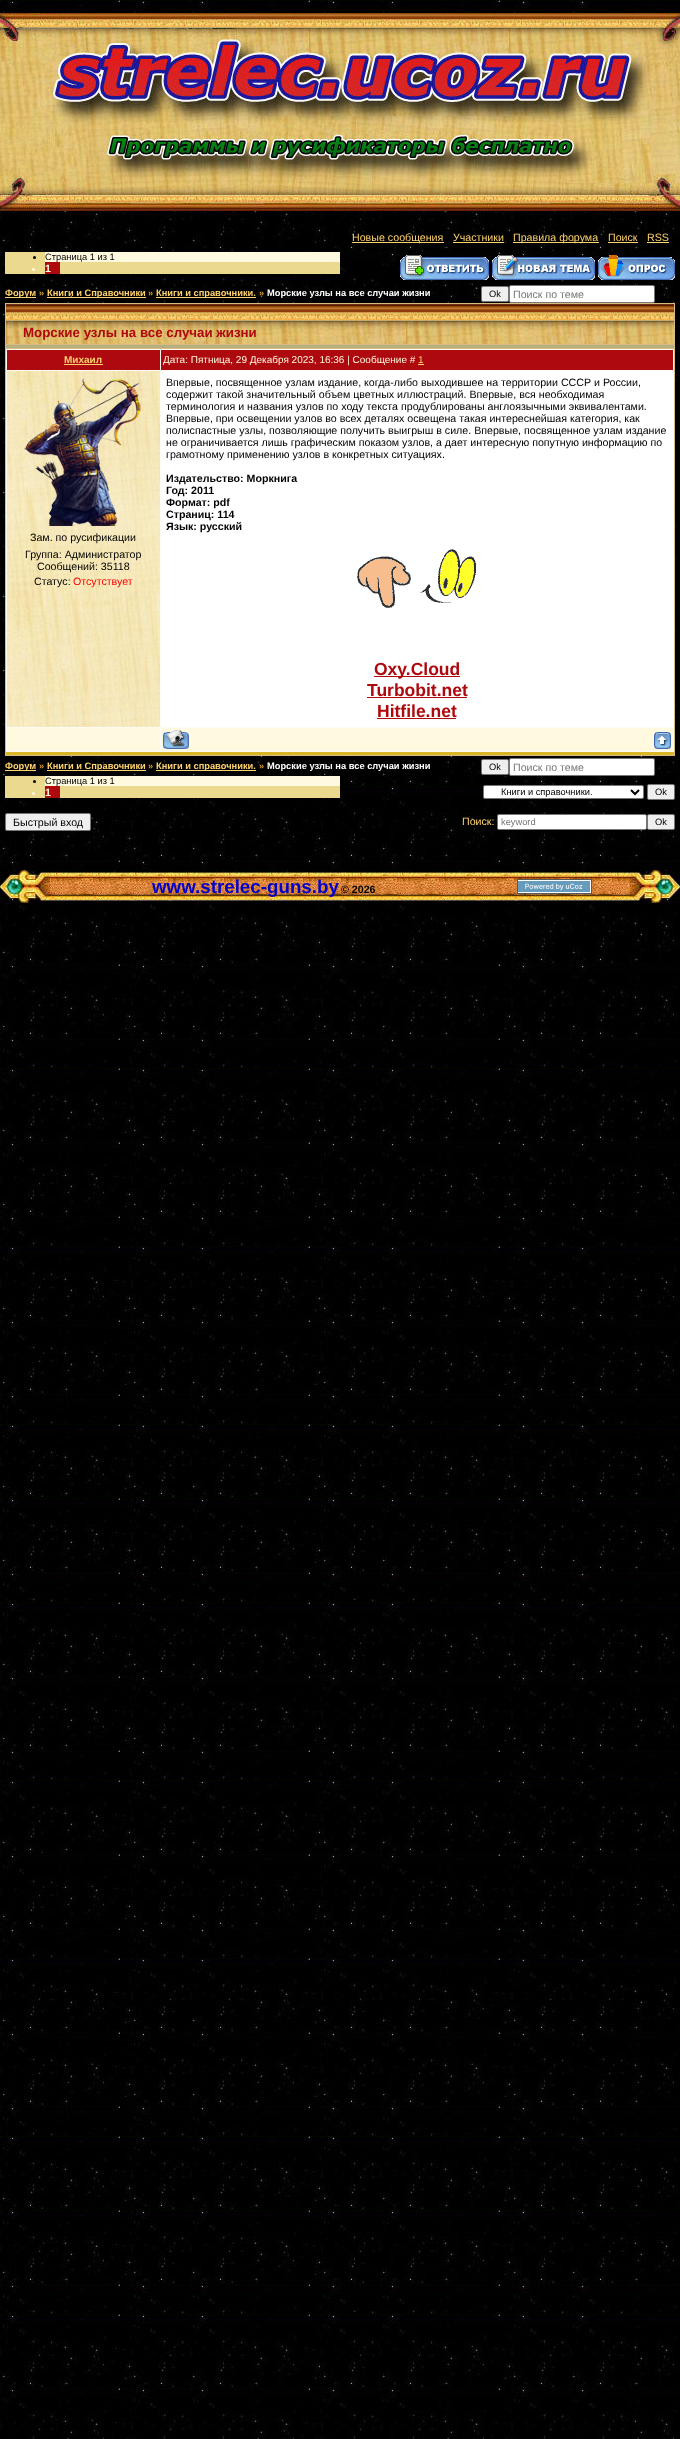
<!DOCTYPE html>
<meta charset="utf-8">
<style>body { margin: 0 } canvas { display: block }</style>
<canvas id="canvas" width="680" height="2439"></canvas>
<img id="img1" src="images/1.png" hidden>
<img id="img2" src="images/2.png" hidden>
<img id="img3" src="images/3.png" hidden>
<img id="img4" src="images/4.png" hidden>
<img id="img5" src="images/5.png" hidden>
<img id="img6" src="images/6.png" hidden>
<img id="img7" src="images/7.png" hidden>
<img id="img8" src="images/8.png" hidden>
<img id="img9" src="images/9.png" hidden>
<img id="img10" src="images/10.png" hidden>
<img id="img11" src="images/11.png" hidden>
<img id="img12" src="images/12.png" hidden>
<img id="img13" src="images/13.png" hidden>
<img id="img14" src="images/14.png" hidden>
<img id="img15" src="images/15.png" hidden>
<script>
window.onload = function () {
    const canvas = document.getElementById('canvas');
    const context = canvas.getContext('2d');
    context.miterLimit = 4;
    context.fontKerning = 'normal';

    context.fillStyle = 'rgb(255, 255, 255)';
    context.fillRect(0, 0, 680, 2439);
    context.drawImage(document.getElementById('img1'), 0, 0, 680, 2439);
    context.drawImage(document.getElementById('img2'), 0, 13, 680, 198);
    context.fillStyle = 'rgb(254, 211, 111)';
    context.fillRect(352, 242, 92, 1);
    context.fillRect(453, 242, 51, 1);
    context.fillRect(513, 242, 86, 1);
    context.fillRect(608, 242, 30, 1);
    context.fillRect(647, 242, 22, 1);
    context.fillStyle = 'rgb(235, 217, 142)';
    context.fillRect(5, 252, 335, 22);
    context.fillStyle = 'rgb(255, 250, 223)';
    context.fillRect(45, 252, 295, 10);
    context.fillStyle = 'rgb(0, 0, 0)';
    context.beginPath();
    context.arc(34.5, 257.5, 1.5, 0, 2 * Math.PI);
    context.fill();
    context.fillStyle = 'rgb(173, 9, 14)';
    context.fillRect(45, 262, 15, 12);
    context.fillStyle = 'rgb(255, 250, 223)';
    context.beginPath();
    context.arc(33.5, 269.5, 1.5, 0, 2 * Math.PI);
    context.fill();
    context.drawImage(document.getElementById('img3'), 400, 255, 89, 25);
    context.drawImage(document.getElementById('img4'), 492, 255, 103, 25);
    context.drawImage(document.getElementById('img5'), 598, 255, 77, 25);
    context.fillStyle = 'rgb(254, 211, 111)';
    context.fillRect(5, 297, 31, 1);
    context.fillRect(47, 297, 99, 1);
    context.fillRect(156, 297, 100, 1);
    context.fillStyle = 'rgb(239, 239, 239)';
    context.beginPath();
    context.roundRect(481.5, 286.5, 27, 15, 1.5);
    context.fill();
    context.strokeStyle = 'rgb(118, 118, 118)';
    context.stroke();
    context.fillStyle = 'rgb(255, 255, 255)';
    context.beginPath();
    context.roundRect(509.5, 285.5, 145, 17, 1.5);
    context.fill();
    context.stroke();
    context.fillStyle = 'rgb(216, 186, 131)';
    context.fillRect(5, 303, 670, 453);
    context.drawImage(document.getElementById('img6'), 6, 304, 668, 40);
    context.fillStyle = 'rgb(181, 175, 128)';
    context.fillRect(6, 345, 668, 3);
    context.fillStyle = 'rgb(253, 252, 244)';
    context.fillRect(6, 349, 668, 403);
    context.fillStyle = 'rgb(217, 182, 39)';
    context.fillRect(6, 752, 668, 3);
    context.fillStyle = 'rgb(173, 9, 14)';
    context.fillRect(7, 350, 153, 20);
    context.fillStyle = 'rgb(254, 211, 111)';
    context.fillRect(64, 364, 39, 1);
    context.fillStyle = 'rgb(173, 9, 14)';
    context.fillRect(161, 350, 512, 20);
    context.fillStyle = 'rgb(254, 211, 111)';
    context.fillRect(418, 364, 6, 1);
    context.drawImage(document.getElementById('img7'), 7, 371, 153, 356);
    context.drawImage(document.getElementById('img8'), 24, 378, 117, 148);
    context.fillStyle = 'rgb(255, 255, 255)';
    context.fillRect(161, 371, 512, 356);
    context.drawImage(document.getElementById('img9'), 357, 549, 119, 59);
    context.fillStyle = 'rgb(173, 9, 14)';
    context.fillRect(374, 676, 86, 1);
    context.fillRect(367, 697, 100, 1);
    context.fillRect(377, 718, 79, 1);
    context.fillStyle = 'rgb(255, 250, 223)';
    context.fillRect(7, 728, 153, 23);
    context.fillRect(161, 728, 512, 23);
    context.drawImage(document.getElementById('img10'), 163, 730, 26, 19);
    context.drawImage(document.getElementById('img11'), 654, 732, 17, 17);
    context.fillStyle = 'rgb(254, 211, 111)';
    context.fillRect(5, 770, 31, 1);
    context.fillRect(47, 770, 99, 1);
    context.fillRect(156, 770, 100, 1);
    context.fillStyle = 'rgb(239, 239, 239)';
    context.beginPath();
    context.roundRect(481.5, 759.5, 27, 15, 1.5);
    context.fill();
    context.stroke();
    context.fillStyle = 'rgb(255, 255, 255)';
    context.beginPath();
    context.roundRect(509.5, 758.5, 145, 17, 1.5);
    context.fill();
    context.stroke();
    context.fillStyle = 'rgb(235, 217, 142)';
    context.fillRect(5, 776, 335, 22);
    context.fillStyle = 'rgb(255, 250, 223)';
    context.fillRect(45, 776, 295, 10);
    context.fillStyle = 'rgb(0, 0, 0)';
    context.beginPath();
    context.arc(34.5, 781.5, 1.5, 0, 2 * Math.PI);
    context.fill();
    context.fillStyle = 'rgb(173, 9, 14)';
    context.fillRect(45, 786, 15, 12);
    context.fillStyle = 'rgb(255, 250, 223)';
    context.beginPath();
    context.arc(33.5, 793.5, 1.5, 0, 2 * Math.PI);
    context.fill();
    context.fillStyle = 'rgb(255, 255, 255)';
    context.beginPath();
    context.roundRect(483.5, 785.5, 160, 13, 1.5);
    context.fill();
    context.stroke();
    context.beginPath();
    context.moveTo(631, 790);
    context.lineTo(635, 794);
    context.lineTo(639, 790);
    context.strokeStyle = 'rgb(0, 0, 0)';
    context.lineWidth = 2;
    context.stroke();
    context.fillStyle = 'rgb(239, 239, 239)';
    context.beginPath();
    context.roundRect(647.5, 784.5, 27, 15, 1.5);
    context.fill();
    context.strokeStyle = 'rgb(118, 118, 118)';
    context.lineWidth = 1;
    context.stroke();
    context.beginPath();
    context.roundRect(5.5, 813.5, 85, 17, 1.5);
    context.fill();
    context.stroke();
    context.fillStyle = 'rgb(255, 255, 255)';
    context.beginPath();
    context.roundRect(497.5, 814.5, 149, 15, 1.5);
    context.fill();
    context.stroke();
    context.fillStyle = 'rgb(239, 239, 239)';
    context.beginPath();
    context.roundRect(647.5, 814.5, 27, 15, 1.5);
    context.fill();
    context.stroke();
    context.drawImage(document.getElementById('img12'), 50, 870, 580, 33);
    context.drawImage(document.getElementById('img13'), 0, 870, 50, 33);
    context.drawImage(document.getElementById('img14'), 517, 879, 75, 15);
    context.drawImage(document.getElementById('img15'), 630, 870, 50, 33);
    context.font = '10.65px Liberation Sans';
    context.fillStyle = 'rgb(254, 211, 111)';
    context.fillText('Новые сообщения', 352, 241);
    context.fillText('Участники', 453, 241);
    context.fillText('Правила форума', 513, 241);
    context.fillText('Поиск', 608, 241);
    context.fillText('RSS', 647, 241);
    context.font = '9.3px Liberation Sans';
    context.fillStyle = 'rgb(0, 0, 0)';
    context.fillText('Страница 1 из 1', 45, 260);
    context.font = 'bold 10.65px Liberation Sans';
    context.fillStyle = 'rgb(255, 250, 223)';
    context.fillText('1', 45, 272);
    context.font = 'bold 9.3px Liberation Sans';
    context.fillStyle = 'rgb(254, 211, 111)';
    context.fillText('Форум', 5, 296);
    context.fillStyle = 'rgb(214, 157, 48)';
    context.fillText('»', 39, 296);
    context.fillStyle = 'rgb(254, 211, 111)';
    context.fillText('Книги и Справочники', 47, 296);
    context.fillStyle = 'rgb(214, 157, 48)';
    context.fillText('»', 148, 296);
    context.fillStyle = 'rgb(254, 211, 111)';
    context.fillText('Книги и справочники.', 156, 296);
    context.fillStyle = 'rgb(214, 157, 48)';
    context.fillText('»', 259, 296);
    context.fillStyle = 'rgb(255, 255, 255)';
    context.fillText('Морские узлы на все случаи жизни', 267, 296);
    context.font = '9.3px Liberation Sans';
    context.fillStyle = 'rgb(0, 0, 0)';
    context.fillText('Ok', 489, 297);
    context.font = '10.65px Liberation Sans';
    context.fillStyle = 'rgb(117, 117, 117)';
    context.fillText('Поиск по теме', 513, 298);
    context.font = 'bold 13.3px Liberation Sans';
    context.fillStyle = 'rgb(173, 9, 14)';
    context.fillText('Морские узлы на все случаи жизни', 23, 337);
    context.font = 'bold 10px Liberation Sans';
    context.fillStyle = 'rgb(254, 211, 111)';
    context.fillText('Михаил', 64, 363);
    context.font = '10px Liberation Sans';
    context.fillStyle = 'rgb(255, 250, 223)';
    context.fillText('Дата: Пятница, 29 Декабря 2023, 16:36 | Сообщение #', 163, 363);
    context.fillStyle = 'rgb(254, 211, 111)';
    context.fillText('1', 418, 363);
    context.font = '10.65px Liberation Sans';
    context.fillStyle = 'rgb(0, 0, 0)';
    context.fillText('Зам. по русификации', 30, 541);
    context.fillText('Группа: Администратор', 25, 558);
    context.fillText('Сообщений: 35118', 37, 570);
    context.fillText('Статус:', 34, 585);
    context.fillStyle = 'rgb(255, 0, 0)';
    context.fillText('Отсутствует', 73, 585);
    context.fillStyle = 'rgb(0, 0, 0)';
    context.fillText('Впервые, посвященное узлам издание, когда-либо выходившее на территории СССР и России,', 166, 386);
    context.fillText('содержит такой значительный объем цветных иллюстраций. Впервые, вся необходимая', 166, 398);
    context.fillText('терминология и названия узлов по ходу текста продублированы англоязычными эквивалентами.', 166, 410);
    context.fillText('Впервые, при освещении узлов во всех деталях освещена такая интереснейшая категория, как', 166, 422);
    context.fillText('полиспастные узлы, позволяющие получить выигрыш в силе. Впервые, посвященное узлам издание', 166, 434);
    context.fillText('не ограничивается лишь графическим показом узлов, а дает интересную попутную информацию по', 166, 446);
    context.fillText('грамотному применению узлов в конкретных ситуациях.', 166, 458);
    context.font = 'bold 10.65px Liberation Sans';
    context.fillText('Издательство: Моркнига', 166, 482);
    context.fillText('Год: 2011', 166, 494);
    context.fillText('Формат: pdf', 166, 506);
    context.fillText('Страниц: 114', 166, 518);
    context.fillText('Язык: русский', 166, 530);
    context.font = 'bold 17.5px Liberation Sans';
    context.fillStyle = 'rgb(173, 9, 14)';
    context.fillText('Oxy.Cloud', 374, 675);
    context.fillText('Turbobit.net', 367, 696);
    context.fillText('Hitfile.net', 377, 717);
    context.font = 'bold 9.3px Liberation Sans';
    context.fillStyle = 'rgb(254, 211, 111)';
    context.fillText('Форум', 5, 769);
    context.fillStyle = 'rgb(214, 157, 48)';
    context.fillText('»', 39, 769);
    context.fillStyle = 'rgb(254, 211, 111)';
    context.fillText('Книги и Справочники', 47, 769);
    context.fillStyle = 'rgb(214, 157, 48)';
    context.fillText('»', 148, 769);
    context.fillStyle = 'rgb(254, 211, 111)';
    context.fillText('Книги и справочники.', 156, 769);
    context.fillStyle = 'rgb(214, 157, 48)';
    context.fillText('»', 259, 769);
    context.fillStyle = 'rgb(255, 255, 255)';
    context.fillText('Морские узлы на все случаи жизни', 267, 769);
    context.font = '9.3px Liberation Sans';
    context.fillStyle = 'rgb(0, 0, 0)';
    context.fillText('Ok', 489, 770);
    context.font = '10.65px Liberation Sans';
    context.fillStyle = 'rgb(117, 117, 117)';
    context.fillText('Поиск по теме', 513, 771);
    context.font = '9.3px Liberation Sans';
    context.fillStyle = 'rgb(0, 0, 0)';
    context.fillText('Страница 1 из 1', 45, 784);
    context.font = 'bold 10.65px Liberation Sans';
    context.fillStyle = 'rgb(255, 250, 223)';
    context.fillText('1', 45, 796);
    context.font = '9.3px Liberation Sans';
    context.fillStyle = 'rgb(0, 0, 0)';
    context.fillText('Книги и справочники.', 501, 795);
    context.fillText('Ok', 655, 795);
    context.font = '10.65px Liberation Sans';
    context.fillText('Быстрый вход', 13, 826);
    context.fillStyle = 'rgb(254, 211, 111)';
    context.fillText('Поиск:', 462, 825);
    context.font = '9.3px Liberation Sans';
    context.fillStyle = 'rgb(117, 117, 117)';
    context.fillText('keyword', 501, 825);
    context.fillStyle = 'rgb(0, 0, 0)';
    context.fillText('Ok', 655, 825);
    context.font = 'bold 18.75px Liberation Sans';
    context.fillStyle = 'rgb(0, 0, 205)';
    context.fillText('www.strelec-guns.by', 152, 893);
    context.font = 'bold 10.65px Liberation Sans';
    context.fillStyle = 'rgb(0, 0, 0)';
    context.fillText('© 2026', 341, 893);
};
</script>
